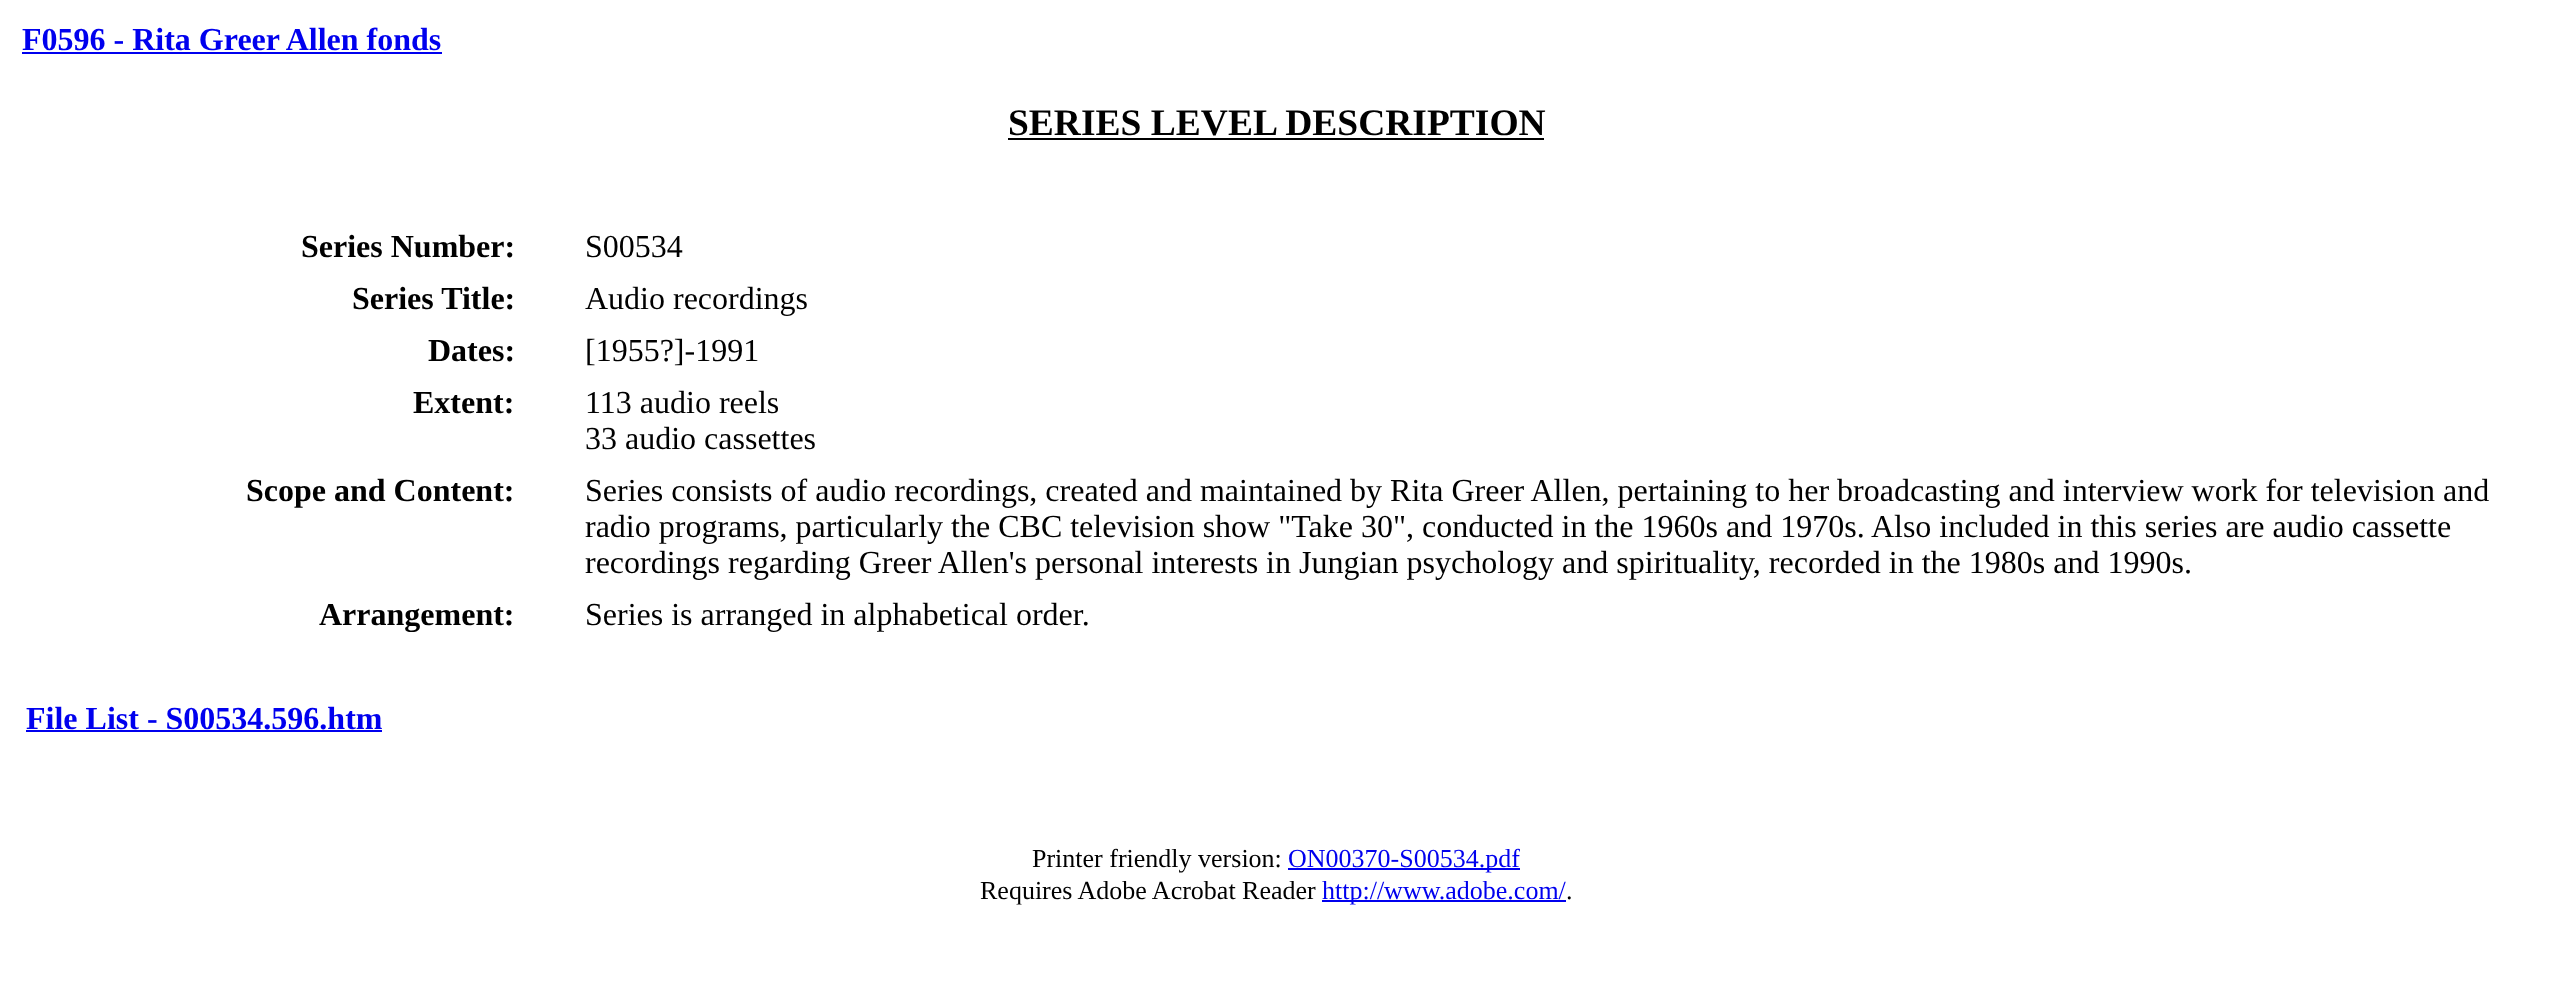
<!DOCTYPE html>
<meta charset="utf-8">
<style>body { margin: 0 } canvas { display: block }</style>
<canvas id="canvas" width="2551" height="1002"></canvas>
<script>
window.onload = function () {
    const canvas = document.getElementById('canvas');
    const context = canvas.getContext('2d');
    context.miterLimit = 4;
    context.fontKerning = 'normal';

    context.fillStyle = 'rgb(255, 255, 255)';
    context.fillRect(0, 0, 2551, 1002);
    context.fillStyle = 'rgb(0, 0, 238)';
    context.fillRect(22, 52, 420, 2);
    context.fillStyle = 'rgb(0, 0, 0)';
    context.fillRect(1008, 138, 536, 2);
    context.fillStyle = 'rgb(0, 0, 238)';
    context.fillRect(26, 730, 356, 2);
    context.fillRect(1288, 868, 232, 2);
    context.fillRect(1322, 900, 244, 2);
    context.font = 'bold 32px Liberation Serif';
    context.fillText('F0596 - Rita Greer Allen fonds', 22, 50);
    context.font = 'bold 37.5px Liberation Serif';
    context.fillStyle = 'rgb(0, 0, 0)';
    context.fillText('SERIES LEVEL DESCRIPTION', 1008, 135);
    context.font = 'bold 32px Liberation Serif';
    context.fillText('Series Number:', 301, 257);
    context.font = '32px Liberation Serif';
    context.fillText('S00534', 585, 257);
    context.font = 'bold 32px Liberation Serif';
    context.fillText('Series Title:', 352, 309);
    context.font = '32px Liberation Serif';
    context.fillText('Audio recordings', 585, 309);
    context.font = 'bold 32px Liberation Serif';
    context.fillText('Dates:', 428, 361);
    context.font = '32px Liberation Serif';
    context.fillText('[1955?]-1991', 585, 361);
    context.font = 'bold 32px Liberation Serif';
    context.fillText('Extent:', 413, 413);
    context.font = '32px Liberation Serif';
    context.fillText('113 audio reels', 585, 413);
    context.fillText('33 audio cassettes', 585, 449);
    context.font = 'bold 32px Liberation Serif';
    context.fillText('Scope and Content:', 246, 501);
    context.font = '32px Liberation Serif';
    context.fillText('Series consists of audio recordings, created and maintained by Rita Greer Allen, pertaining to her broadcasting and interview work for television and', 585, 501);
    context.fillText('radio programs, particularly the CBC television show "Take 30", conducted in the 1960s and 1970s. Also included in this series are audio cassette', 585, 537);
    context.fillText('recordings regarding Greer Allen\'s personal interests in Jungian psychology and spirituality, recorded in the 1980s and 1990s.', 585, 573);
    context.font = 'bold 32px Liberation Serif';
    context.fillText('Arrangement:', 319, 625);
    context.font = '32px Liberation Serif';
    context.fillText('Series is arranged in alphabetical order.', 585, 625);
    context.font = 'bold 32px Liberation Serif';
    context.fillStyle = 'rgb(0, 0, 238)';
    context.fillText('File List - S00534.596.htm', 26, 729);
    context.font = '26px Liberation Serif';
    context.fillStyle = 'rgb(0, 0, 0)';
    context.fillText('Printer friendly version:', 1032, 867);
    context.fillStyle = 'rgb(0, 0, 238)';
    context.fillText('ON00370-S00534.pdf', 1288, 867);
    context.fillStyle = 'rgb(0, 0, 0)';
    context.fillText('Requires Adobe Acrobat Reader', 980, 899);
    context.fillStyle = 'rgb(0, 0, 238)';
    context.fillText('http://www.adobe.com/', 1322, 899);
    context.fillStyle = 'rgb(0, 0, 0)';
    context.fillText('.', 1566, 899);
};
</script>
